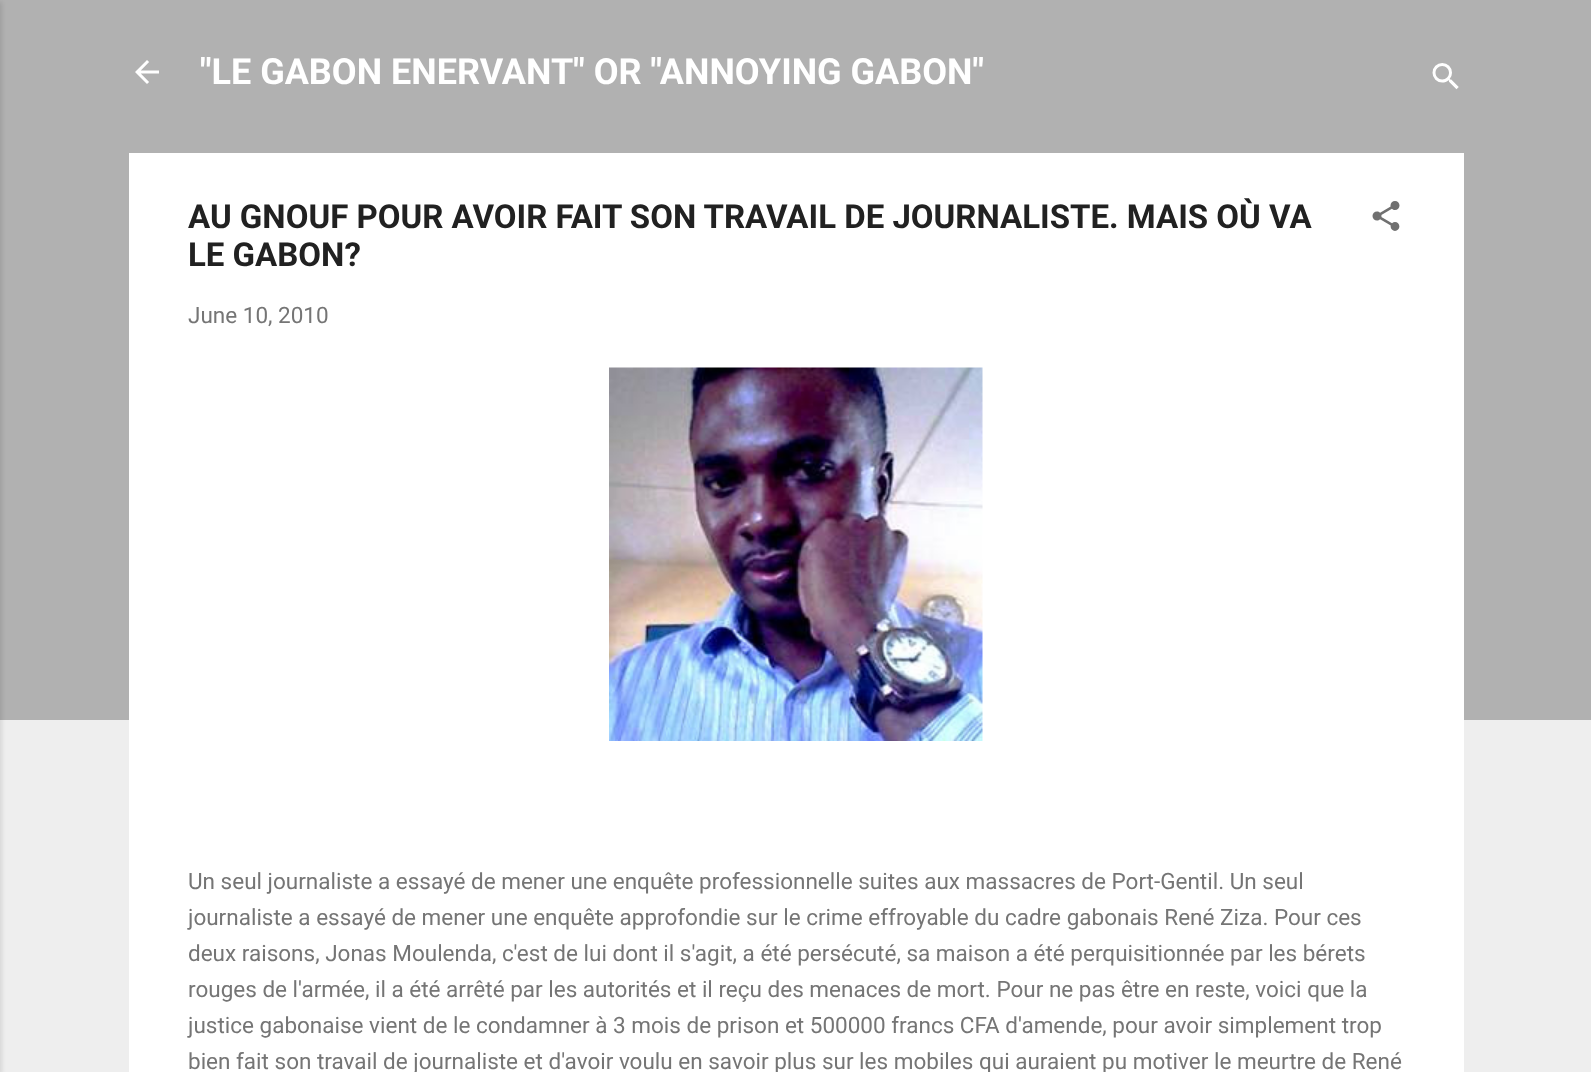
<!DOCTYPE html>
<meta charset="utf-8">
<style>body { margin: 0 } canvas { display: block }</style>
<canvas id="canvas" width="1591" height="1072"></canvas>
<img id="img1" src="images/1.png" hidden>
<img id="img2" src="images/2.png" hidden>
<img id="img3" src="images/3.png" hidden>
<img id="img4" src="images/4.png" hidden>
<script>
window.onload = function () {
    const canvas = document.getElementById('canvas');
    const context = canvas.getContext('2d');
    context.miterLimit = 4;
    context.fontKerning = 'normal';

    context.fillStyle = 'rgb(238, 238, 238)';
    context.fillRect(0, 0, 1591, 1072);
    context.fillStyle = 'rgb(177, 177, 177)';
    context.fillRect(0, 0, 1591, 720);
    context.fillStyle = 'rgba(0, 0, 0, 0.1)';
    context.filter = 'blur(2px)';
    context.beginPath();
    context.rect(-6, 2, 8, 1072);
    context.fill();
    context.filter = 'none';
    context.drawImage(document.getElementById('img1'), 135, 60, 24, 24);
    context.drawImage(document.getElementById('img2'), 1432, 63, 27, 27);
    context.fillStyle = 'rgb(255, 255, 255)';
    context.fillRect(129, 153, 1335, 919);
    context.drawImage(document.getElementById('img3'), 1372, 201, 28, 30);
    context.drawImage(document.getElementById('img4'), 609, 367, 374, 374);
    context.font = 'bold 36px Roboto';
    context.fillText('"LE GABON ENERVANT" OR "ANNOYING GABON"', 200, 84);
    context.font = 'bold 33px Roboto';
    context.fillStyle = 'rgb(33, 33, 33)';
    context.fillText('AU GNOUF POUR AVOIR FAIT SON TRAVAIL DE JOURNALISTE. MAIS OÙ VA', 188, 228);
    context.fillText('LE GABON?', 188, 266);
    context.font = '22.5px Roboto';
    context.fillStyle = 'rgb(117, 117, 117)';
    context.fillText('June 10, 2010', 188, 323);
    context.fillText('Un seul journaliste a essayé de mener une enquête professionnelle suites aux massacres de Port-Gentil. Un seul', 188, 889);
    context.fillText('journaliste a essayé de mener une enquête approfondie sur le crime effroyable du cadre gabonais René Ziza. Pour ces', 188, 925);
    context.fillText('deux raisons, Jonas Moulenda, c\'est de lui dont il s\'agit, a été persécuté, sa maison a été perquisitionnée par les bérets', 188, 961);
    context.fillText('rouges de l\'armée, il a été arrêté par les autorités et il reçu des menaces de mort. Pour ne pas être en reste, voici que la', 188, 997);
    context.fillText('justice gabonaise vient de le condamner à 3 mois de prison et 500000 francs CFA d\'amende, pour avoir simplement trop', 188, 1033);
    context.fillText('bien fait son travail de journaliste et d\'avoir voulu en savoir plus sur les mobiles qui auraient pu motiver le meurtre de René', 188, 1069);
};
</script>
